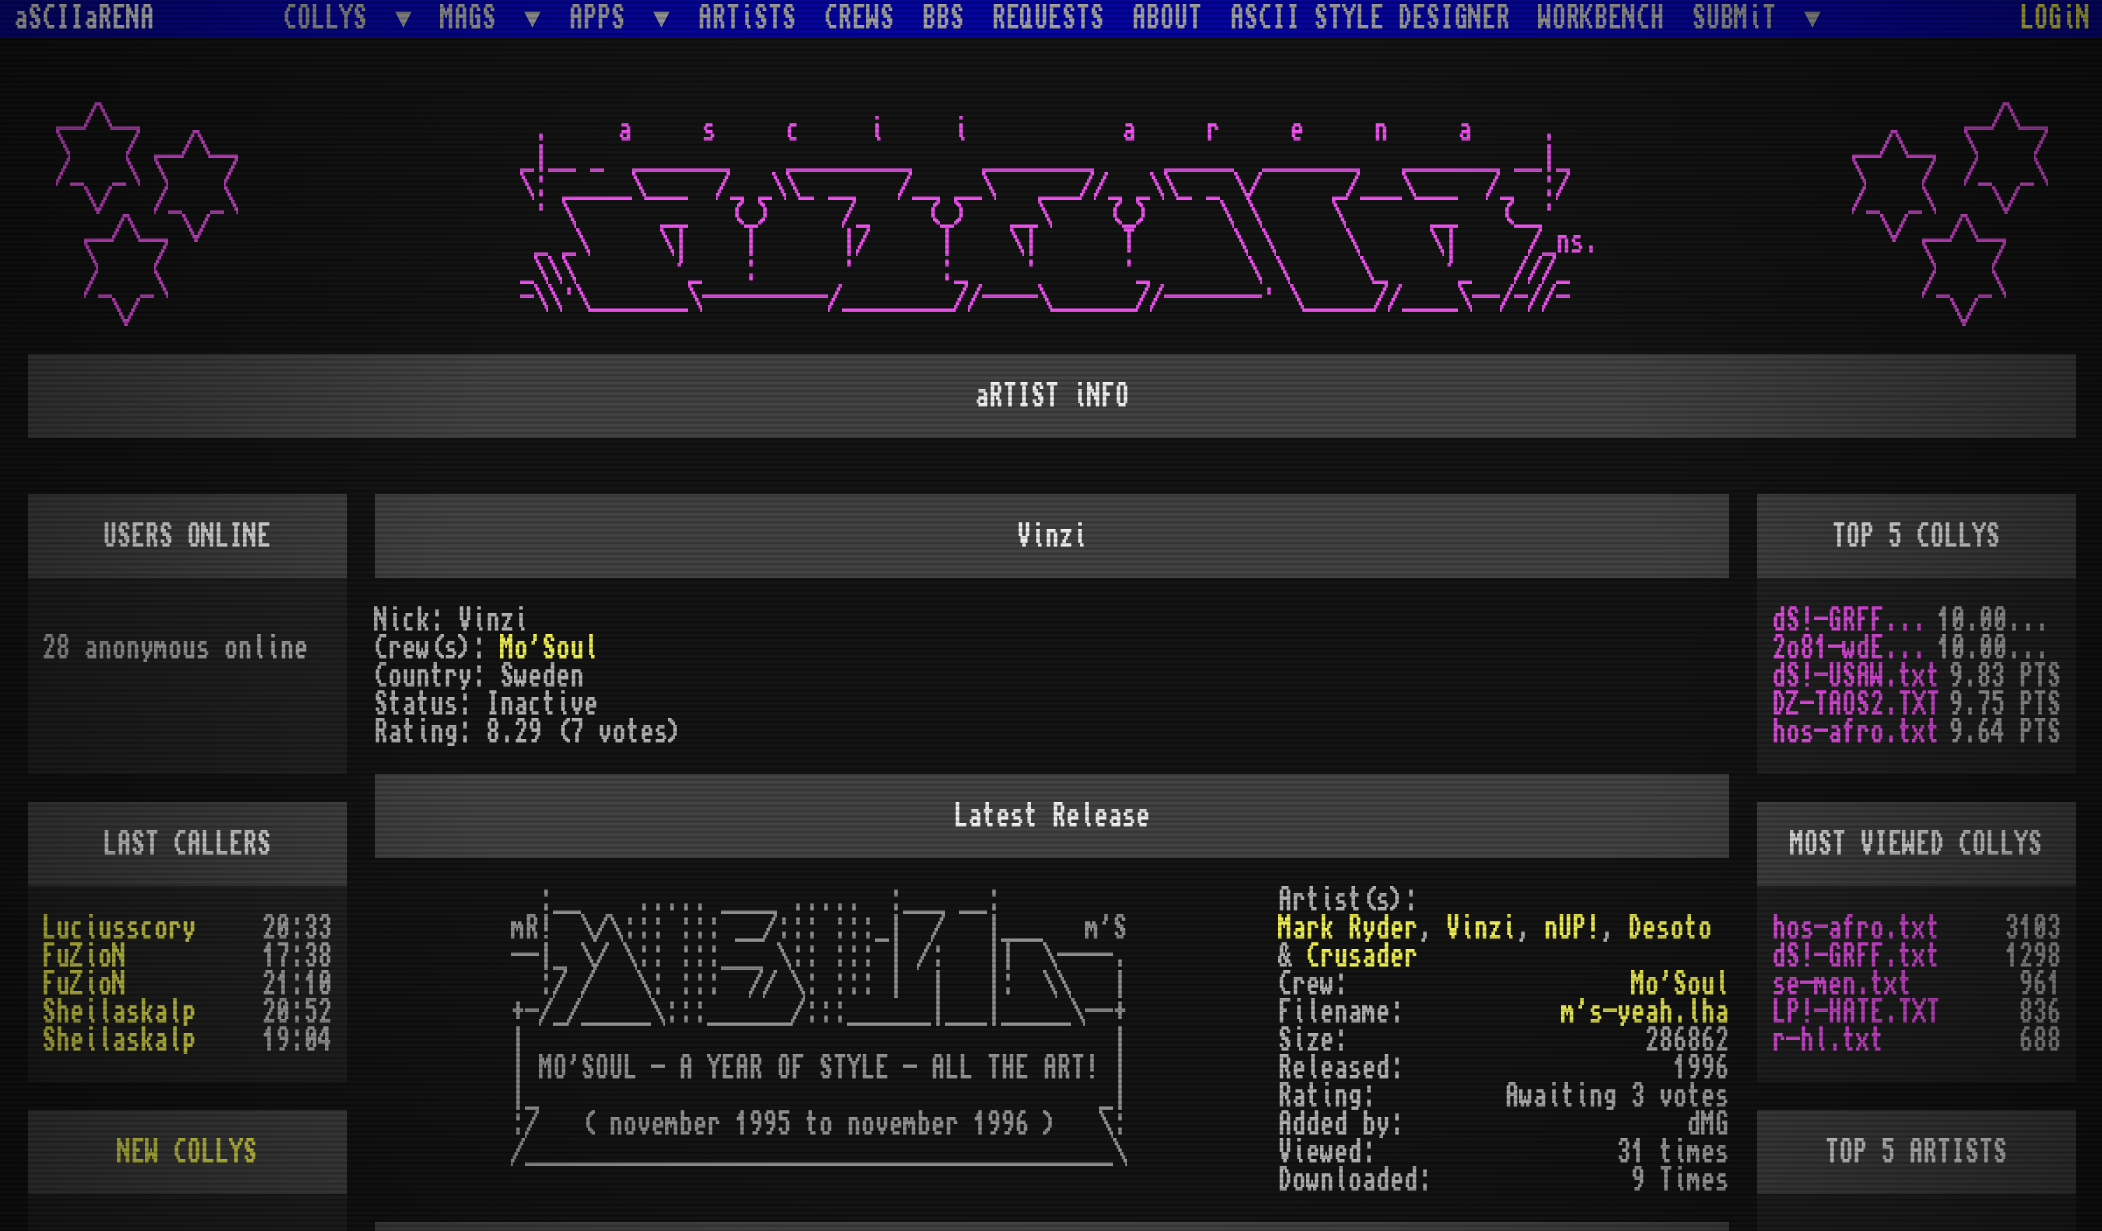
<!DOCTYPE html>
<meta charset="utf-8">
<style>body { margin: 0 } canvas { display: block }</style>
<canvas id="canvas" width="2102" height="1231"></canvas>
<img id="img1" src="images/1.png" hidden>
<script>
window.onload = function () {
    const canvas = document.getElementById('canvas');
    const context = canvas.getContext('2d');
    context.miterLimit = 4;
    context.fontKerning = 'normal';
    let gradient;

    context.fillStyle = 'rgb(17, 17, 17)';
    context.fillRect(0, 0, 2102, 1231);
    context.fillStyle = 'rgb(0, 0, 170)';
    context.fillRect(0, 0, 2102, 37);
    context.fillStyle = 'rgb(68, 68, 68)';
    context.fillRect(28, 354, 2048, 84);
    context.fillRect(28, 494, 319, 84);
    context.fillStyle = 'rgb(33, 33, 33)';
    context.fillRect(28, 578, 319, 196);
    context.fillStyle = 'rgb(68, 68, 68)';
    context.fillRect(28, 802, 319, 84);
    context.fillStyle = 'rgb(33, 33, 33)';
    context.fillRect(28, 886, 319, 196);
    context.fillStyle = 'rgb(68, 68, 68)';
    context.fillRect(28, 1110, 319, 84);
    context.fillStyle = 'rgb(33, 33, 33)';
    context.fillRect(28, 1194, 319, 37);
    context.fillStyle = 'rgb(68, 68, 68)';
    context.fillRect(375, 494, 1354, 84);
    context.fillRect(375, 774, 1354, 84);
    context.fillRect(375, 1222, 1354, 9);
    context.fillRect(1757, 494, 319, 84);
    context.fillStyle = 'rgb(33, 33, 33)';
    context.fillRect(1757, 578, 319, 196);
    context.fillStyle = 'rgb(68, 68, 68)';
    context.fillRect(1757, 802, 319, 84);
    context.fillStyle = 'rgb(33, 33, 33)';
    context.fillRect(1757, 886, 319, 196);
    context.fillStyle = 'rgb(68, 68, 68)';
    context.fillRect(1757, 1110, 319, 84);
    context.fillStyle = 'rgb(33, 33, 33)';
    context.fillRect(1757, 1194, 319, 37);
    context.font = '28px "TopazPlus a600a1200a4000"';
    context.fillStyle = 'rgb(255, 255, 255)';
    context.fillText('aSCIIaRENA', 14, 32);
    context.fillStyle = 'rgb(170, 170, 170)';
    context.fillText('COLLYS', 283, 32);
    context.font = '28px Liberation Mono';
    context.fillText('▼', 395, 27);
    context.font = '28px "TopazPlus a600a1200a4000"';
    context.fillText('MAGS', 440, 32);
    context.font = '28px Liberation Mono';
    context.fillText('▼', 524, 27);
    context.font = '28px "TopazPlus a600a1200a4000"';
    context.fillText('APPS', 569, 32);
    context.font = '28px Liberation Mono';
    context.fillText('▼', 653, 27);
    context.font = '28px "TopazPlus a600a1200a4000"';
    context.fillText('ARTiSTS', 698, 32);
    context.fillText('CREWS', 824, 32);
    context.fillText('BBS', 922, 32);
    context.fillText('REQUESTS', 992, 32);
    context.fillText('ABOUT', 1132, 32);
    context.fillText('ASCII STYLE DESIGNER', 1230, 32);
    context.fillText('WORKBENCH', 1538, 32);
    context.fillText('SUBMiT', 1692, 32);
    context.font = '28px Liberation Mono';
    context.fillText('▼', 1804, 27);
    context.font = '28px "TopazPlus a600a1200a4000"';
    context.fillStyle = 'rgb(255, 255, 85)';
    context.fillText('LOGiN', 2020, 32);
    context.fillStyle = 'rgb(255, 85, 255)';
    context.fillText('__/\\__', 56, 130);
    context.fillText('\\    / __/\\__', 56, 158);
    context.fillText('/_  _\\ \\    /', 56, 186);
    context.fillText('\\/   /_  _\\', 84, 214);
    context.fillText('__/\\__ \\/', 84, 242);
    context.fillText('\\    /', 84, 270);
    context.fillText('/_  _\\', 84, 298);
    context.fillText('\\/', 112, 326);
    context.fillText('.     a     s     c     i     i           a     r     e     n     a     .', 534, 144);
    context.fillText('_|__ _  _______    _________     ________     _____  _______   _______ __|_', 520, 172);
    context.fillText('\\: _____\\___  /_ _\\\\_ __   /__ __\\   ___//_ _\\\\_ _ \\/     _/___\\___  /_  :/', 520, 200);
    context.fillText('· \\      __   (_)     /_    (_)   __\\    (_)     \\ \\     \\      __   (__·', 534, 228);
    context.fillText('_ _\\     \\|    |      |/     |    \\|      T       \\ \\     \\     \\|     /_ns.', 534, 256);
    context.fillText('_\\\\\\       \'_   :      ·      :_    ·      ·_       \\ \\     \\_    \'_   ///_', 520, 284);
    context.fillText('-\\\\·\\_______\\---------/________//----\\______//-------· \\_____//____\\--/-//-', 520, 312);
    context.fillText('__/\\__', 1964, 130);
    context.save();
    context.beginPath();
    context.rect(1852, 102, 196, 224);
    context.clip();
    context.fillText('__/\\__  \\    /', 1852, 158);
    context.fillText('\\    /  /_  _\\', 1852, 186);
    context.fillText('/_  _\\    \\/', 1852, 214);
    context.restore();
    context.fillText('\\/ __/\\__', 1880, 242);
    context.fillText('\\    /', 1922, 270);
    context.fillText('/_  _\\', 1922, 298);
    context.fillText('\\/', 1950, 326);
    context.fillStyle = 'rgb(255, 255, 255)';
    context.fillText('aRTIST iNFO', 975, 410);
    context.fillText('USERS ONLINE', 103, 550);
    context.fillStyle = 'rgb(188, 188, 188)';
    context.fillText('28 anonymous online', 42, 662);
    context.fillStyle = 'rgb(255, 255, 255)';
    context.fillText('LAST CALLERS', 103, 858);
    context.fillStyle = 'rgb(255, 255, 85)';
    context.fillText('Luciusscory', 42, 942);
    context.fillStyle = 'rgb(188, 188, 188)';
    context.fillText('20:33', 262, 942);
    context.fillStyle = 'rgb(255, 255, 85)';
    context.fillText('FuZioN', 42, 970);
    context.fillStyle = 'rgb(188, 188, 188)';
    context.fillText('17:38', 262, 970);
    context.fillStyle = 'rgb(255, 255, 85)';
    context.fillText('FuZioN', 42, 998);
    context.fillStyle = 'rgb(188, 188, 188)';
    context.fillText('21:10', 262, 998);
    context.fillStyle = 'rgb(255, 255, 85)';
    context.fillText('Sheilaskalp', 42, 1026);
    context.fillStyle = 'rgb(188, 188, 188)';
    context.fillText('20:52', 262, 1026);
    context.fillStyle = 'rgb(255, 255, 85)';
    context.fillText('Sheilaskalp', 42, 1054);
    context.fillStyle = 'rgb(188, 188, 188)';
    context.fillText('19:04', 262, 1054);
    context.fillStyle = 'rgb(255, 255, 85)';
    context.fillText('NEW COLLYS', 117, 1166);
    context.fillStyle = 'rgb(255, 255, 255)';
    context.fillText('Vinzi', 1017, 550);
    context.fillStyle = 'rgb(188, 188, 188)';
    context.fillText('Nick: Vinzi', 374, 634);
    context.fillText('Crew(s):', 374, 662);
    context.fillStyle = 'rgb(255, 255, 85)';
    context.fillText('Mo\'Soul', 500, 662);
    context.fillStyle = 'rgb(188, 188, 188)';
    context.fillText('Country: Sweden', 374, 690);
    context.fillText('Status: Inactive', 374, 718);
    context.fillText('Rating: 8.29 (7 votes)', 374, 746);
    context.fillStyle = 'rgb(255, 255, 255)';
    context.fillText('Latest Release', 954, 830);
    context.fillStyle = 'rgb(153, 153, 153)';
    context.fillText(':__    ..... ____ .....  :___ __:', 539, 914);
    context.save();
    context.beginPath();
    context.rect(511, 886, 616, 308);
    context.clip();
    context.fillText('mR!  \\/\\::: ::: __/::: :::_|  /   |___   m\'S', 511, 942);
    context.fillText('--|_ \\/ \\:: :::___ \\:: ::: | /:   ||  \\----.', 511, 970);
    context.restore();
    context.fillText(':/ /   \\: :::  // \\: ::: |  |   |:  \\\\   |', 539, 998);
    context.fillText('+-/_/_____\\:::______/:::______|___|_____\\--+', 511, 1026);
    context.fillText('|                                          |', 511, 1054);
    context.fillText('| MO\'SOUL - A YEAR OF STYLE - ALL THE ART! |', 511, 1082);
    context.fillText('|_                                        _|', 511, 1110);
    context.fillText(':/   ( november 1995 to november 1996 )   \\:', 511, 1138);
    context.save();
    context.beginPath();
    context.rect(511, 886, 616, 308);
    context.clip();
    context.fillText('/__________________________________________\\', 511, 1166);
    context.restore();
    context.fillStyle = 'rgb(188, 188, 188)';
    context.fillText('Artist(s):', 1278, 914);
    context.fillStyle = 'rgb(255, 255, 85)';
    context.fillText('Mark Ryder', 1278, 942);
    context.fillStyle = 'rgb(188, 188, 188)';
    context.fillText(',', 1418, 942);
    context.fillStyle = 'rgb(255, 255, 85)';
    context.fillText('Vinzi', 1446, 942);
    context.fillStyle = 'rgb(188, 188, 188)';
    context.fillText(',', 1516, 942);
    context.fillStyle = 'rgb(255, 255, 85)';
    context.fillText('nUP!', 1544, 942);
    context.fillStyle = 'rgb(188, 188, 188)';
    context.fillText(',', 1600, 942);
    context.fillStyle = 'rgb(255, 255, 85)';
    context.fillText('Desoto', 1628, 942);
    context.fillStyle = 'rgb(188, 188, 188)';
    context.fillText('&', 1278, 970);
    context.fillStyle = 'rgb(255, 255, 85)';
    context.fillText('Crusader', 1306, 970);
    context.fillStyle = 'rgb(188, 188, 188)';
    context.fillText('Crew:', 1278, 998);
    context.fillStyle = 'rgb(255, 255, 85)';
    context.fillText('Mo\'Soul', 1631, 998);
    context.fillStyle = 'rgb(188, 188, 188)';
    context.fillText('Filename:', 1278, 1026);
    context.fillStyle = 'rgb(255, 255, 85)';
    context.fillText('m\'s-yeah.lha', 1561, 1026);
    context.fillStyle = 'rgb(188, 188, 188)';
    context.fillText('Size:', 1278, 1054);
    context.fillText('286862', 1645, 1054);
    context.fillText('Released:', 1278, 1082);
    context.fillText('1996', 1673, 1082);
    context.fillText('Rating:', 1278, 1110);
    context.fillText('Awaiting 3 votes', 1505, 1110);
    context.fillText('Added by:', 1278, 1138);
    context.fillText('dMG', 1687, 1138);
    context.fillText('Viewed:', 1278, 1166);
    context.fillText('31 times', 1617, 1166);
    context.fillText('Downloaded:', 1278, 1194);
    context.fillText('9 Times', 1631, 1194);
    context.fillStyle = 'rgb(255, 255, 255)';
    context.fillText('TOP 5 COLLYS', 1832, 550);
    context.fillStyle = 'rgb(255, 85, 255)';
    context.fillText('dS!-GRFF...', 1772, 634);
    context.fillStyle = 'rgb(188, 188, 188)';
    context.fillText('10.00...', 1937, 634);
    context.fillStyle = 'rgb(255, 85, 255)';
    context.fillText('2o81-wdE...', 1772, 662);
    context.fillStyle = 'rgb(188, 188, 188)';
    context.fillText('10.00...', 1937, 662);
    context.fillStyle = 'rgb(255, 85, 255)';
    context.fillText('dS!-USAW.txt', 1772, 690);
    context.fillStyle = 'rgb(188, 188, 188)';
    context.fillText('9.83 PTS', 1949, 690);
    context.fillStyle = 'rgb(255, 85, 255)';
    context.fillText('DZ-TAOS2.TXT', 1772, 718);
    context.fillStyle = 'rgb(188, 188, 188)';
    context.fillText('9.75 PTS', 1949, 718);
    context.fillStyle = 'rgb(255, 85, 255)';
    context.fillText('hos-afro.txt', 1772, 746);
    context.fillStyle = 'rgb(188, 188, 188)';
    context.fillText('9.64 PTS', 1949, 746);
    context.fillStyle = 'rgb(255, 255, 255)';
    context.fillText('MOST VIEWED COLLYS', 1790, 858);
    context.fillStyle = 'rgb(255, 85, 255)';
    context.fillText('hos-afro.txt', 1772, 942);
    context.fillStyle = 'rgb(188, 188, 188)';
    context.fillText('3103', 2005, 942);
    context.fillStyle = 'rgb(255, 85, 255)';
    context.fillText('dS!-GRFF.txt', 1772, 970);
    context.fillStyle = 'rgb(188, 188, 188)';
    context.fillText('1298', 2005, 970);
    context.fillStyle = 'rgb(255, 85, 255)';
    context.fillText('se-men.txt', 1772, 998);
    context.fillStyle = 'rgb(188, 188, 188)';
    context.fillText('961', 2019, 998);
    context.fillStyle = 'rgb(255, 85, 255)';
    context.fillText('LP!-HATE.TXT', 1772, 1026);
    context.fillStyle = 'rgb(188, 188, 188)';
    context.fillText('836', 2019, 1026);
    context.fillStyle = 'rgb(255, 85, 255)';
    context.fillText('r-hl.txt', 1772, 1054);
    context.fillStyle = 'rgb(188, 188, 188)';
    context.fillText('688', 2019, 1054);
    context.fillStyle = 'rgb(255, 255, 255)';
    context.fillText('TOP 5 ARTISTS', 1825, 1166);
    gradient = context.createRadialGradient(1052, 616, 0, 1052, 616, 1828);
    gradient.addColorStop(0.33, 'rgba(0, 0, 0, 0)');
    gradient.addColorStop(1, 'rgb(0, 0, 0)');
    context.fillStyle = gradient;
    context.fillRect(0, 0, 2102, 1231);
    context.drawImage(document.getElementById('img1'), 0, 0, 2102, 1231);
};
</script>
